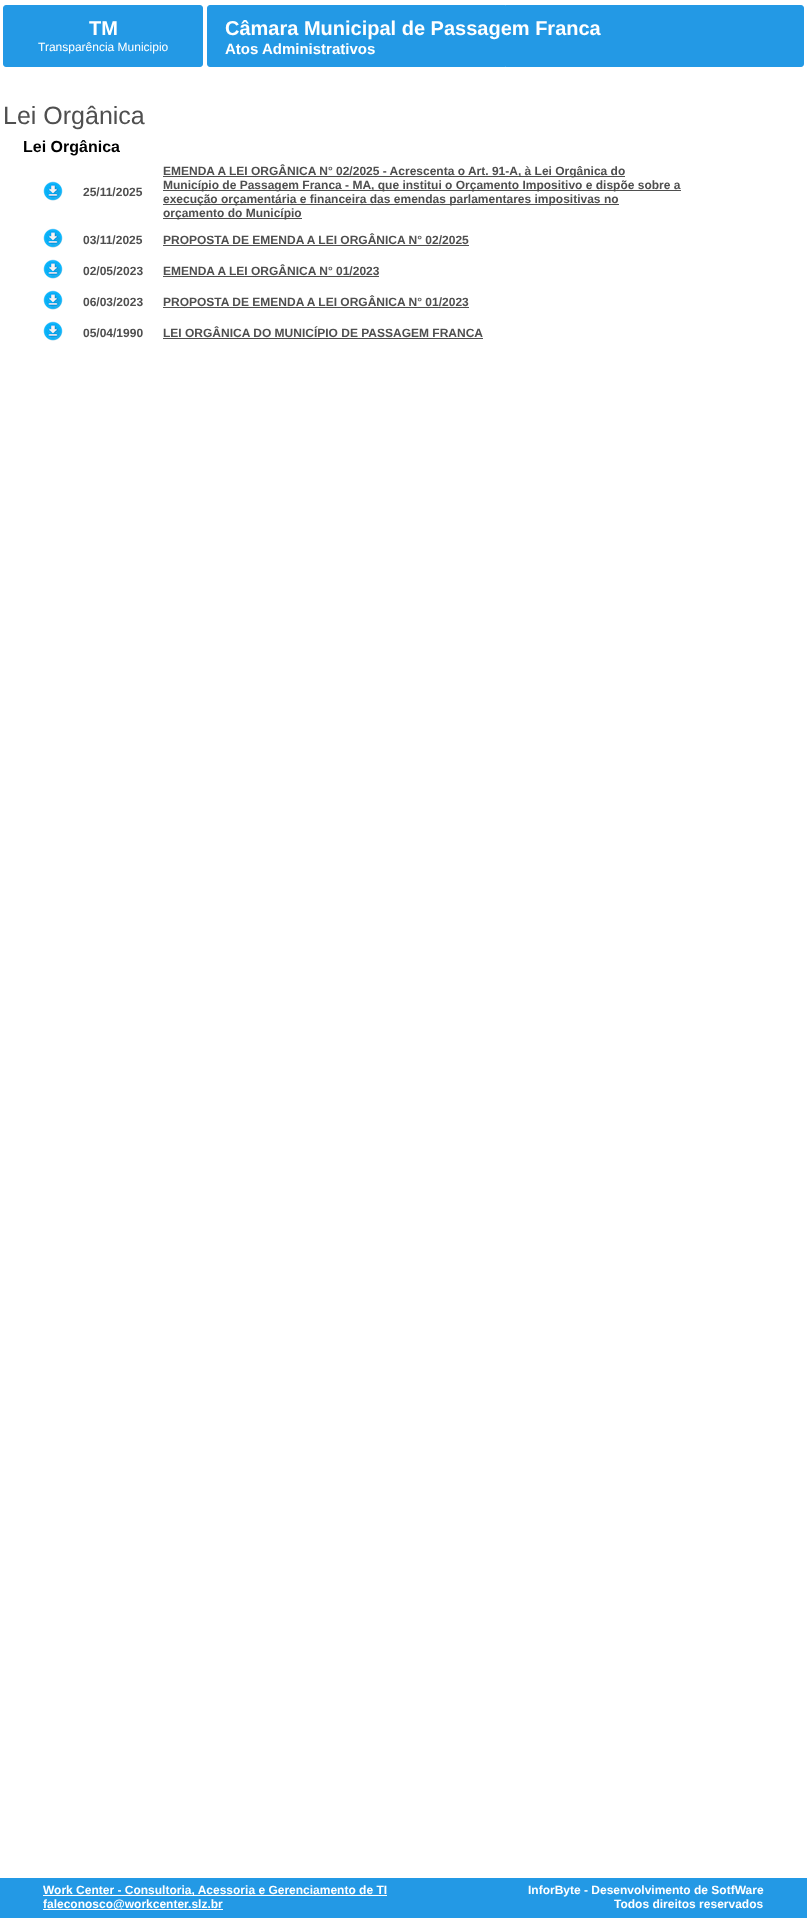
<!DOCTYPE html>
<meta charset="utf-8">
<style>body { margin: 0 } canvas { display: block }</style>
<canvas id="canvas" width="807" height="1918"></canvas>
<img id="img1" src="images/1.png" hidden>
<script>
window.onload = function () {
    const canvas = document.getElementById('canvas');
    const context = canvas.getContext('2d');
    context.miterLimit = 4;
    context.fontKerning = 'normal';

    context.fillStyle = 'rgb(255, 255, 255)';
    context.fillRect(0, 0, 807, 1918);
    context.fillStyle = 'rgb(35, 153, 229)';
    context.beginPath();
    context.roundRect(3.5, 5.5, 199, 61, 2.5);
    context.fill();
    context.strokeStyle = 'rgb(35, 153, 229)';
    context.stroke();
    context.beginPath();
    context.roundRect(207.5, 5.5, 596, 61, 2.5);
    context.fill();
    context.stroke();
    context.drawImage(document.getElementById('img1'), 43, 181, 20, 20);
    context.fillStyle = 'rgb(79, 79, 79)';
    context.fillRect(163, 176, 462, 1);
    context.fillRect(163, 190, 518, 1);
    context.fillRect(163, 204, 456, 1);
    context.fillRect(163, 218, 139, 1);
    context.drawImage(document.getElementById('img1'), 43, 228, 20, 20);
    context.fillRect(163, 245, 306, 1);
    context.drawImage(document.getElementById('img1'), 43, 259, 20, 20);
    context.fillRect(163, 276, 216, 1);
    context.drawImage(document.getElementById('img1'), 43, 290, 20, 20);
    context.fillRect(163, 307, 306, 1);
    context.drawImage(document.getElementById('img1'), 43, 321, 20, 20);
    context.fillRect(163, 338, 320, 1);
    context.fillStyle = 'rgb(35, 153, 229)';
    context.fillRect(0, 1878, 807, 40);
    context.fillStyle = 'rgb(255, 255, 255)';
    context.fillRect(43, 1895, 344, 1);
    context.fillRect(43, 1909, 180, 1);
    context.font = 'bold 20px Liberation Sans';
    context.fillText('TM', 89, 35);
    context.font = '12px Liberation Sans';
    context.fillText('Transparência Municipio', 38, 51);
    context.font = 'bold 20px Liberation Sans';
    context.fillText('Câmara Municipal de Passagem Franca', 225, 35);
    context.font = 'bold 15px Liberation Sans';
    context.fillText('Atos Administrativos', 225, 54);
    context.font = '25px Liberation Sans';
    context.fillStyle = 'rgb(79, 79, 79)';
    context.fillText('Lei Orgânica', 3, 124);
    context.font = 'bold 16px Liberation Sans';
    context.fillStyle = 'rgb(0, 0, 0)';
    context.fillText('Lei Orgânica', 23, 152);
    context.font = 'bold 12px Liberation Sans';
    context.fillStyle = 'rgb(79, 79, 79)';
    context.fillText('25/11/2025', 83, 196);
    context.fillText('EMENDA A LEI ORGÂNICA N° 02/2025 - Acrescenta o Art. 91-A, à Lei Orgânica do', 163, 175);
    context.fillText('Município de Passagem Franca - MA, que institui o Orçamento Impositivo e dispõe sobre a', 163, 189);
    context.fillText('execução orçamentária e financeira das emendas parlamentares impositivas no', 163, 203);
    context.fillText('orçamento do Município', 163, 217);
    context.fillText('03/11/2025', 83, 244);
    context.fillText('PROPOSTA DE EMENDA A LEI ORGÂNICA N° 02/2025', 163, 244);
    context.fillText('02/05/2023', 83, 275);
    context.fillText('EMENDA A LEI ORGÂNICA N° 01/2023', 163, 275);
    context.fillText('06/03/2023', 83, 306);
    context.fillText('PROPOSTA DE EMENDA A LEI ORGÂNICA N° 01/2023', 163, 306);
    context.fillText('05/04/1990', 83, 337);
    context.fillText('LEI ORGÂNICA DO MUNICÍPIO DE PASSAGEM FRANCA', 163, 337);
    context.fillStyle = 'rgb(255, 255, 255)';
    context.fillText('Work Center - Consultoria, Acessoria e Gerenciamento de TI', 43, 1894);
    context.fillText('faleconosco@workcenter.slz.br', 43, 1908);
    context.fillText('InforByte - Desenvolvimento de SotfWare', 528, 1894);
    context.fillText('Todos direitos reservados', 614, 1908);
};
</script>
